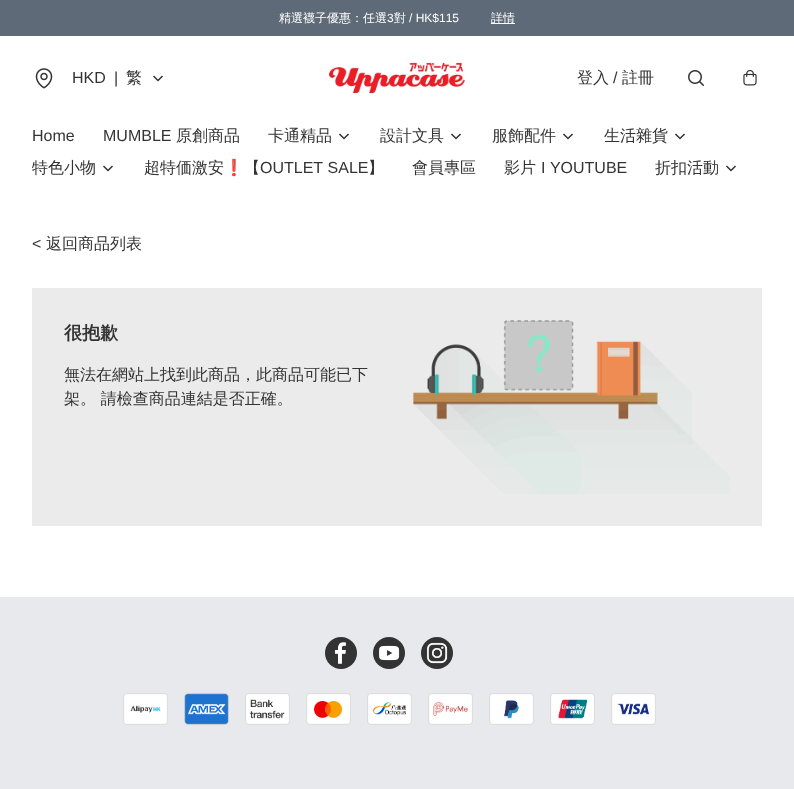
<!DOCTYPE html>
<meta charset="utf-8">
<style>body { margin: 0 } canvas { display: block }</style>
<canvas id="canvas" width="794" height="789"></canvas>
<img id="img1" src="images/1.png" hidden>
<img id="img2" src="images/2.png" hidden>
<img id="img3" src="images/3.png" hidden>
<img id="img4" src="images/4.png" hidden>
<img id="img5" src="images/5.png" hidden>
<img id="img6" src="images/6.png" hidden>
<img id="img7" src="images/7.png" hidden>
<img id="img8" src="images/8.png" hidden>
<img id="img9" src="images/9.png" hidden>
<img id="img10" src="images/10.png" hidden>
<img id="img11" src="images/11.png" hidden>
<img id="img12" src="images/12.png" hidden>
<img id="img13" src="images/13.png" hidden>
<img id="img14" src="images/14.png" hidden>
<img id="img15" src="images/15.png" hidden>
<img id="img16" src="images/16.png" hidden>
<img id="img17" src="images/17.png" hidden>
<script>
window.onload = function () {
    const canvas = document.getElementById('canvas');
    const context = canvas.getContext('2d');
    context.miterLimit = 4;
    context.fontKerning = 'none';

    context.fillStyle = 'rgb(255, 255, 255)';
    context.fillRect(0, 0, 794, 789);
    context.fillStyle = 'rgb(95, 106, 120)';
    context.fillRect(0, 0, 794, 36);
    context.fillStyle = 'rgb(255, 255, 255)';
    context.fillRect(491, 23, 24, 1);
    context.drawImage(document.getElementById('img1'), 35, 68, 18, 21);
    context.beginPath();
    context.moveTo(154, 76.5);
    context.lineTo(158, 80.5);
    context.lineTo(162, 76.5);
    context.strokeStyle = 'rgb(51, 51, 51)';
    context.lineWidth = 1.5;
    context.lineCap = 'square';
    context.lineJoin = 'round';
    context.stroke();
    context.drawImage(document.getElementById('img2'), 328, 62, 138, 32);
    context.drawImage(document.getElementById('img3'), 688, 70, 16, 16);
    context.drawImage(document.getElementById('img4'), 743, 69, 14, 17);
    context.beginPath();
    context.moveTo(340, 134.5);
    context.lineTo(344, 138.5);
    context.lineTo(348, 134.5);
    context.stroke();
    context.beginPath();
    context.moveTo(452, 134.5);
    context.lineTo(456, 138.5);
    context.lineTo(460, 134.5);
    context.stroke();
    context.beginPath();
    context.moveTo(564, 134.5);
    context.lineTo(568, 138.5);
    context.lineTo(572, 134.5);
    context.stroke();
    context.beginPath();
    context.moveTo(676, 134.5);
    context.lineTo(680, 138.5);
    context.lineTo(684, 134.5);
    context.stroke();
    context.beginPath();
    context.moveTo(104, 166.5);
    context.lineTo(108, 170.5);
    context.lineTo(112, 166.5);
    context.stroke();
    context.beginPath();
    context.moveTo(727, 166.5);
    context.lineTo(731, 170.5);
    context.lineTo(735, 166.5);
    context.stroke();
    context.fillStyle = 'rgb(235, 235, 235)';
    context.fillRect(32, 288, 730, 238);
    context.drawImage(document.getElementById('img5'), 413, 320, 317, 174);
    context.fillStyle = 'rgb(231, 233, 236)';
    context.fillRect(0, 597, 794, 192);
    context.fillStyle = 'rgb(51, 51, 51)';
    context.beginPath();
    context.arc(341, 653, 16, 0, 2 * Math.PI);
    context.fill();
    context.drawImage(document.getElementById('img6'), 334, 642, 12, 22);
    context.beginPath();
    context.arc(389, 653, 16, 0, 2 * Math.PI);
    context.fill();
    context.drawImage(document.getElementById('img7'), 378, 645, 22, 16);
    context.beginPath();
    context.arc(437, 653, 16, 0, 2 * Math.PI);
    context.fill();
    context.drawImage(document.getElementById('img8'), 426, 642, 22, 22);
    context.drawImage(document.getElementById('img9'), 123, 693, 45, 32);
    context.drawImage(document.getElementById('img10'), 184, 693, 45, 32);
    context.drawImage(document.getElementById('img11'), 245, 693, 45, 32);
    context.drawImage(document.getElementById('img12'), 306, 693, 45, 32);
    context.drawImage(document.getElementById('img13'), 367, 693, 45, 32);
    context.drawImage(document.getElementById('img14'), 428, 693, 45, 32);
    context.drawImage(document.getElementById('img15'), 489, 693, 45, 32);
    context.drawImage(document.getElementById('img16'), 550, 693, 45, 32);
    context.drawImage(document.getElementById('img17'), 611, 693, 45, 32);
    context.font = '500 12px WenQuanYi Zen Hei';
    context.fillStyle = 'rgb(255, 255, 255)';
    context.fillText('精選襪子優惠：任選', 279, 22);
    context.font = '12px Liberation Sans';
    context.fillText('3', 387, 22);
    context.font = '500 12px WenQuanYi Zen Hei';
    context.fillText('對', 394, 22);
    context.font = '12px Liberation Sans';
    context.fillText('/ HK$115', 409, 22);
    context.font = '500 12px WenQuanYi Zen Hei';
    context.fillText('詳情', 491, 22);
    context.font = '16px Liberation Sans';
    context.fillStyle = 'rgb(51, 51, 51)';
    context.fillText('HKD', 72, 83);
    context.fillText('|', 114, 83);
    context.font = '500 16px WenQuanYi Zen Hei';
    context.fillText('繁', 126, 83);
    context.fillText('登入', 577, 83);
    context.font = '16px Liberation Sans';
    context.fillText('/', 613, 83);
    context.font = '500 16px WenQuanYi Zen Hei';
    context.fillText('註冊', 622, 83);
    context.font = '16px Liberation Sans';
    context.fillText('Home', 32, 141);
    context.fillText('MUMBLE', 103, 141);
    context.font = '500 16px WenQuanYi Zen Hei';
    context.fillText('原創商品', 176, 141);
    context.fillText('卡通精品', 268, 141);
    context.fillText('設計文具', 380, 141);
    context.fillText('服飾配件', 492, 141);
    context.fillText('生活雜貨', 604, 141);
    context.fillText('特色小物', 32, 173);
    context.fillText('超特価激安', 144, 173);
    context.font = '16px Noto Color Emoji';
    context.fillText('❗', 224, 173);
    context.font = '500 16px WenQuanYi Zen Hei';
    context.fillText('【', 244, 173);
    context.font = '16px Liberation Sans';
    context.fillText('OUTLET SALE', 260, 173);
    context.font = '500 16px WenQuanYi Zen Hei';
    context.fillText('】', 368, 173);
    context.fillText('會員專區', 412, 173);
    context.fillText('影片', 504, 173);
    context.font = '16px Liberation Sans';
    context.fillText('I YOUTUBE', 541, 173);
    context.font = '500 16px WenQuanYi Zen Hei';
    context.fillText('折扣活動', 655, 173);
    context.font = '16px Liberation Sans';
    context.fillText('<', 32, 249);
    context.font = '500 16px WenQuanYi Zen Hei';
    context.fillText('返回商品列表', 46, 249);
    context.font = 'bold 18px WenQuanYi Zen Hei';
    context.fillText('很抱歉', 64, 339);
    context.font = '500 16px WenQuanYi Zen Hei';
    context.fillText('無法在網站上找到此商品，此商品可能已下', 64, 380);
    context.fillText('架。 請檢查商品連結是否正確。', 64, 404);
};
</script>
